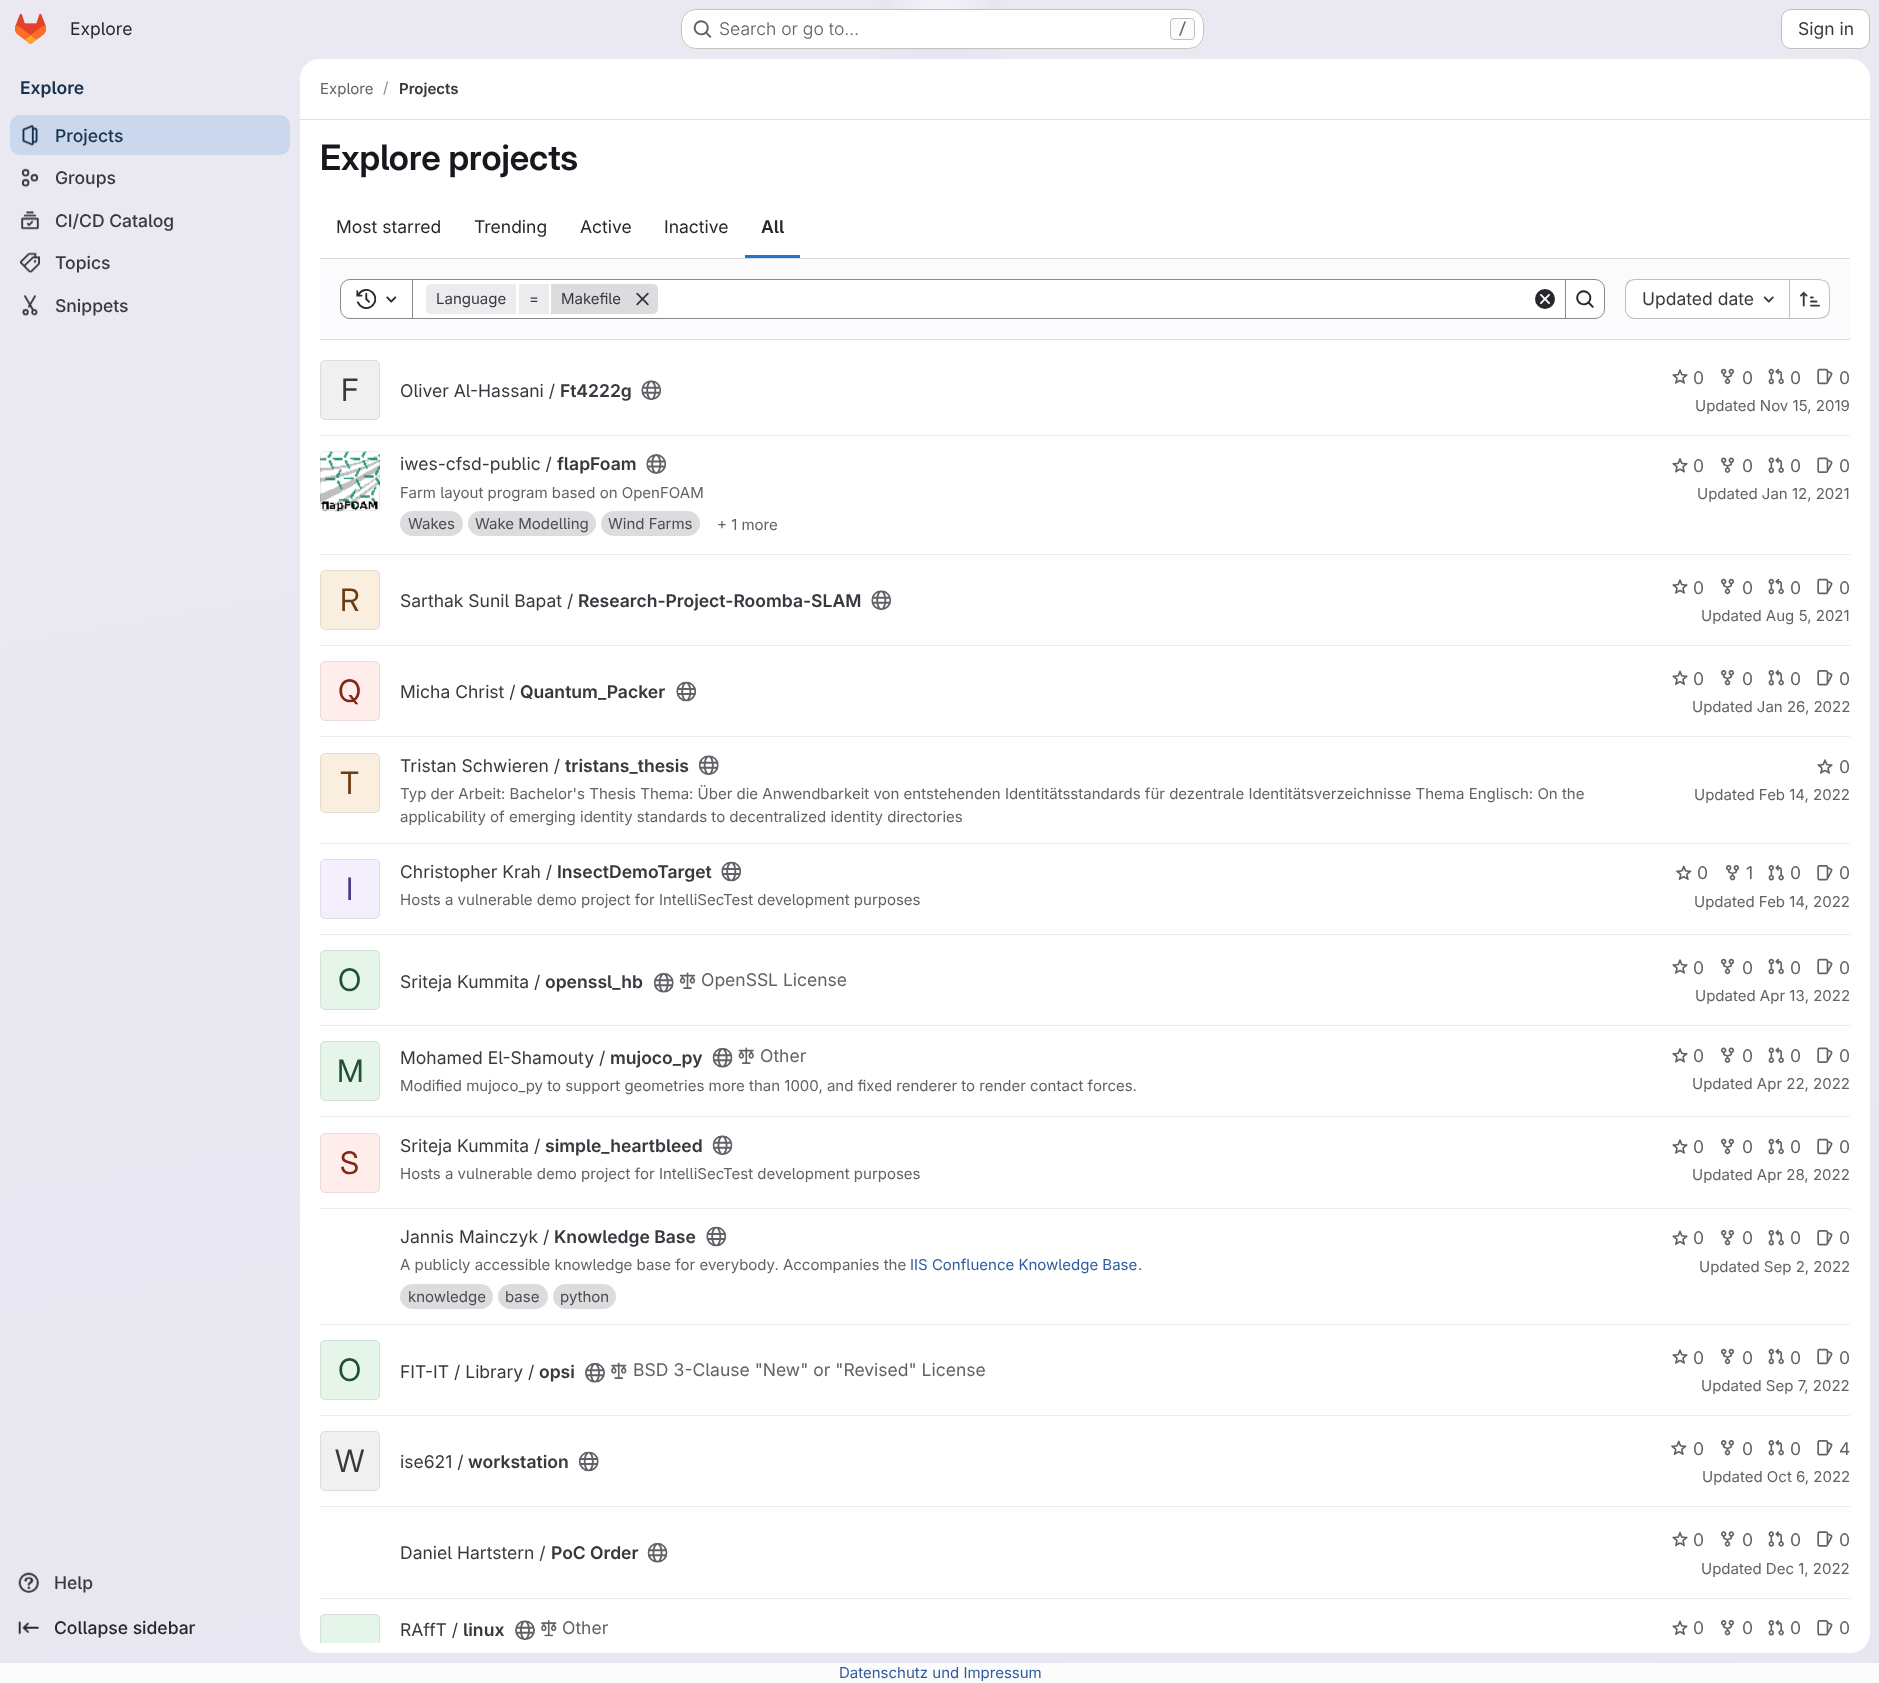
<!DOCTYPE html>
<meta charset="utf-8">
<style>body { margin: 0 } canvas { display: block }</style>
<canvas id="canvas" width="1879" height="1683"></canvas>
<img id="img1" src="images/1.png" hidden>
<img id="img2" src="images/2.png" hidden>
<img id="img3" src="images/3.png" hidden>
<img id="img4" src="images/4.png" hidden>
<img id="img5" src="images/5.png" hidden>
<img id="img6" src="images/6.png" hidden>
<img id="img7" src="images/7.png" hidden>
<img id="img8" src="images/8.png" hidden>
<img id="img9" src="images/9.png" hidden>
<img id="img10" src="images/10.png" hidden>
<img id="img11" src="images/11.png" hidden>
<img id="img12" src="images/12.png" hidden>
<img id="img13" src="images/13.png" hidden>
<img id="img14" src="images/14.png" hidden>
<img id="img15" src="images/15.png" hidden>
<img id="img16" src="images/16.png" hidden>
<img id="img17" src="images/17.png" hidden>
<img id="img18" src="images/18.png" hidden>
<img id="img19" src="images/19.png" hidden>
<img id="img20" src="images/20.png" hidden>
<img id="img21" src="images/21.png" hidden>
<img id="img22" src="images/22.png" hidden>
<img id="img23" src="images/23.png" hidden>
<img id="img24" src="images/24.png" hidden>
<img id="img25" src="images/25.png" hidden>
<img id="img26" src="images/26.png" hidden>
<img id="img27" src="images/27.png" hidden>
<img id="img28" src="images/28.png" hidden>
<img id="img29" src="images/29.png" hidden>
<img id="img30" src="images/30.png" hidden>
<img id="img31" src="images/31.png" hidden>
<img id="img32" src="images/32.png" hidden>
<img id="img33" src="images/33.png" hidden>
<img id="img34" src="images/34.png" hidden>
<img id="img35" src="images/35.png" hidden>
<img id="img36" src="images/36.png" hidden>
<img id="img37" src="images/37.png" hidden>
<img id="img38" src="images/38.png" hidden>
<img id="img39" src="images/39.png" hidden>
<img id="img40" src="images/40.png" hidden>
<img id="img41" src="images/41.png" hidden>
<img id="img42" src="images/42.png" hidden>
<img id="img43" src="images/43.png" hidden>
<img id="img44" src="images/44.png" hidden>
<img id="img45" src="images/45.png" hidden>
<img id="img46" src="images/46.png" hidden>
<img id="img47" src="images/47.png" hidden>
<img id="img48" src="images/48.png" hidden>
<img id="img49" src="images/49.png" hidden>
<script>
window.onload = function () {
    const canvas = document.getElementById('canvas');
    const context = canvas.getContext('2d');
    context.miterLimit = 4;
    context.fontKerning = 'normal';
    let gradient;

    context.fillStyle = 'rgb(255, 255, 255)';
    context.fillRect(0, 0, 1879, 1683);
    gradient = context.createLinearGradient(1112, 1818, 768, -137);
    gradient.addColorStop(0, 'rgb(232, 230, 240)');
    gradient.addColorStop(0.7, 'rgb(234, 233, 242)');
    context.fillStyle = gradient;
    context.fillRect(0, 0, 1879, 1663);
    gradient = context.createRadialGradient(940, -0.67, 0, 940, -0.67, 940);
    gradient.addColorStop(0, 'rgb(228, 226, 237)');
    gradient.addColorStop(0.09, 'rgba(228, 226, 237, 0)');
    context.fillStyle = gradient;
    context.beginPath();
    context.rect(879, 0, 122, 59);
    context.save();
    context.clip();
    context.scale(1, 1684 / 940);
    context.fillRect(0, 0, 1879, 940);
    context.restore();
    gradient = context.createRadialGradient(940, -0.67, 0, 940, -0.67, 940);
    gradient.addColorStop(0, 'rgb(228, 226, 236)');
    gradient.addColorStop(0.07, 'rgba(228, 226, 236, 0)');
    context.fillStyle = gradient;
    context.beginPath();
    context.rect(909, 5, 62, 46);
    context.save();
    context.clip();
    context.scale(1, 1684 / 940);
    context.fillRect(0, 0, 1879, 940);
    context.restore();
    gradient = context.createRadialGradient(940, -1.2, 0, 940, -1.2, 1928);
    gradient.addColorStop(0, 'rgba(255, 255, 255, 0.6)');
    gradient.addColorStop(0.03, 'rgba(255, 255, 255, 0)');
    context.fillStyle = gradient;
    context.fillRect(892, 0, 96, 48);
    context.drawImage(document.getElementById('img1'), 15, 14, 31, 30);
    context.fillStyle = 'rgb(255, 255, 255)';
    context.beginPath();
    context.roundRect(681, 9, 523, 40, 15);
    context.fill();
    context.beginPath();
    context.roundRect(681.5, 9.5, 522, 39, 14.5);
    context.strokeStyle = 'rgba(5, 5, 6, 0.24)';
    context.stroke();
    context.drawImage(document.getElementById('img2'), 693, 20, 19, 18);
    context.fillStyle = 'rgb(251, 250, 253)';
    context.beginPath();
    context.roundRect(1170.5, 18.5, 24, 21, 3.5);
    context.fill();
    context.strokeStyle = 'rgb(191, 191, 195)';
    context.stroke();
    context.fillStyle = 'rgb(255, 255, 255)';
    context.beginPath();
    context.roundRect(1781.5, 9.5, 88, 39, 9.5);
    context.fill();
    context.stroke();
    context.fillStyle = 'rgb(202, 215, 236)';
    context.beginPath();
    context.roundRect(10, 115, 280, 40, 10);
    context.fill();
    context.drawImage(document.getElementById('img3'), 22, 125, 16, 21);
    context.drawImage(document.getElementById('img4'), 21, 168, 18, 20);
    context.drawImage(document.getElementById('img5'), 21, 211, 18, 19);
    context.drawImage(document.getElementById('img6'), 20, 252, 20, 22);
    context.drawImage(document.getElementById('img7'), 22, 295, 16, 21);
    context.drawImage(document.getElementById('img8'), 18, 1572, 21, 21);
    context.drawImage(document.getElementById('img9'), 18, 1620, 21, 15);
    context.fillStyle = 'rgb(255, 255, 255)';
    context.beginPath();
    context.roundRect(300, 59, 1570, 1594, 20);
    context.fill();
    context.beginPath();
    context.roundRect(300, 59, 1570, 61, [20, 20, 0, 0]);
    context.fill();
    context.fillStyle = 'rgb(225, 223, 236)';
    context.fillRect(300, 119, 1570, 1);
    context.fillStyle = 'rgb(31, 117, 203)';
    context.fillRect(745, 255, 55, 3);
    context.fillStyle = 'rgb(251, 250, 253)';
    context.fillRect(320, 259, 1530, 80);
    context.fillStyle = 'rgb(220, 220, 222)';
    context.fillRect(320, 258, 1530, 1);
    context.fillRect(320, 339, 1530, 1);
    context.fillStyle = 'rgb(255, 255, 255)';
    context.fillRect(413, 280, 1152, 38);
    context.strokeStyle = 'rgb(137, 136, 141)';
    context.strokeRect(411.5, 279.5, 1154, 39);
    context.beginPath();
    context.roundRect(340.5, 279.5, 72, 39, [9.5, 0, 0, 9.5]);
    context.fill();
    context.stroke();
    context.drawImage(document.getElementById('img10'), 356, 289, 21, 20);
    context.drawImage(document.getElementById('img11'), 386, 296, 11, 7);
    context.fillStyle = 'rgb(236, 236, 239)';
    context.beginPath();
    context.roundRect(426, 284, 90, 30, [5, 0, 0, 5]);
    context.fill();
    context.fillRect(519, 284, 30, 30);
    context.fillStyle = 'rgb(220, 220, 222)';
    context.beginPath();
    context.roundRect(551, 284, 107, 30, [0, 5, 5, 0]);
    context.fill();
    context.drawImage(document.getElementById('img12'), 636, 292, 13, 14);
    context.drawImage(document.getElementById('img13'), 1535, 289, 20, 20);
    context.fillStyle = 'rgb(255, 255, 255)';
    context.beginPath();
    context.roundRect(1565.5, 279.5, 39, 39, [0, 9.5, 9.5, 0]);
    context.fill();
    context.stroke();
    context.drawImage(document.getElementById('img14'), 1576, 290, 18, 18);
    context.beginPath();
    context.roundRect(1626, 280, 163, 38, [9, 0, 0, 9]);
    context.fill();
    context.fillStyle = 'rgb(191, 191, 195)';
    context.beginPath();
    context.moveTo(1635, 279);
    context.lineTo(1789, 279);
    context.lineTo(1789, 319);
    context.lineTo(1635, 319);
    context.bezierCurveTo(1629, 319, 1625, 314, 1625, 309);
    context.lineTo(1625, 289);
    context.bezierCurveTo(1625, 283, 1629, 279, 1635, 279);
    context.closePath();
    context.moveTo(1635, 280);
    context.lineTo(1789, 280);
    context.lineTo(1789, 318);
    context.lineTo(1635, 318);
    context.bezierCurveTo(1630, 318, 1626, 314, 1626, 309);
    context.lineTo(1626, 289);
    context.bezierCurveTo(1626, 284, 1630, 280, 1635, 280);
    context.closePath();
    context.fill('evenodd');
    context.drawImage(document.getElementById('img15'), 1763, 296, 11, 7);
    context.fillStyle = 'rgb(255, 255, 255)';
    context.beginPath();
    context.roundRect(1790, 280, 39, 38, [0, 9, 9, 0]);
    context.fill();
    context.fillStyle = 'rgb(191, 191, 195)';
    context.beginPath();
    context.moveTo(1790, 279);
    context.lineTo(1815, 279);
    context.bezierCurveTo(1831, 279, 1830, 285, 1830, 299);
    context.bezierCurveTo(1830, 313, 1831, 319, 1815, 319);
    context.lineTo(1790, 319);
    context.closePath();
    context.moveTo(1790, 280);
    context.lineTo(1815, 280);
    context.bezierCurveTo(1830, 280, 1829, 285, 1829, 299);
    context.bezierCurveTo(1829, 312, 1830, 318, 1815, 318);
    context.lineTo(1790, 318);
    context.closePath();
    context.fill('evenodd');
    context.fillRect(1789, 279, 1, 40);
    context.drawImage(document.getElementById('img16'), 1800, 291, 20, 16);
    context.fillStyle = 'rgb(236, 236, 239)';
    context.fillRect(320, 435, 1530, 1);
    context.fillStyle = 'rgb(240, 240, 241)';
    context.beginPath();
    context.roundRect(320, 360, 60, 60, 5);
    context.fill();
    context.beginPath();
    context.roundRect(320.5, 360.5, 59, 59, 4.5);
    context.strokeStyle = 'rgba(5, 5, 6, 0.08)';
    context.stroke();
    context.drawImage(document.getElementById('img17'), 641, 380, 21, 21);
    context.drawImage(document.getElementById('img18'), 1672, 369, 16, 15);
    context.drawImage(document.getElementById('img19'), 1720, 368, 15, 17);
    context.drawImage(document.getElementById('img20'), 1768, 368, 16, 17);
    context.drawImage(document.getElementById('img21'), 1817, 368, 16, 17);
    context.fillStyle = 'rgb(236, 236, 239)';
    context.fillRect(320, 554, 1530, 1);
    context.drawImage(document.getElementById('img22'), 320, 451, 60, 61);
    context.beginPath();
    context.roundRect(320.5, 451.5, 59, 59, 4.5);
    context.stroke();
    context.drawImage(document.getElementById('img23'), 646, 454, 21, 20);
    context.fillStyle = 'rgb(220, 220, 222)';
    context.beginPath();
    context.roundRect(400, 511, 63, 25, 12.5);
    context.fill();
    context.beginPath();
    context.roundRect(468, 511, 128, 25, 12.5);
    context.fill();
    context.beginPath();
    context.roundRect(601, 511, 99, 25, 12.5);
    context.fill();
    context.drawImage(document.getElementById('img24'), 1672, 458, 16, 15);
    context.drawImage(document.getElementById('img25'), 1720, 457, 15, 16);
    context.drawImage(document.getElementById('img26'), 1768, 457, 16, 16);
    context.drawImage(document.getElementById('img27'), 1817, 457, 16, 16);
    context.fillStyle = 'rgb(236, 236, 239)';
    context.fillRect(320, 645, 1530, 1);
    context.fillStyle = 'rgb(250, 239, 222)';
    context.beginPath();
    context.roundRect(320, 570, 60, 60, 5);
    context.fill();
    context.beginPath();
    context.roundRect(320.5, 570.5, 59, 59, 4.5);
    context.stroke();
    context.drawImage(document.getElementById('img17'), 871, 590, 21, 21);
    context.drawImage(document.getElementById('img18'), 1672, 579, 16, 15);
    context.drawImage(document.getElementById('img19'), 1720, 578, 15, 17);
    context.drawImage(document.getElementById('img20'), 1768, 578, 16, 17);
    context.drawImage(document.getElementById('img21'), 1817, 578, 16, 17);
    context.fillStyle = 'rgb(236, 236, 239)';
    context.fillRect(320, 736, 1530, 1);
    context.fillStyle = 'rgb(254, 237, 235)';
    context.beginPath();
    context.roundRect(320, 661, 60, 60, 5);
    context.fill();
    context.beginPath();
    context.roundRect(320.5, 661.5, 59, 59, 4.5);
    context.stroke();
    context.drawImage(document.getElementById('img28'), 676, 681, 21, 21);
    context.drawImage(document.getElementById('img29'), 1672, 670, 16, 15);
    context.drawImage(document.getElementById('img30'), 1720, 670, 14, 16);
    context.drawImage(document.getElementById('img31'), 1768, 670, 16, 16);
    context.drawImage(document.getElementById('img32'), 1817, 670, 16, 16);
    context.fillStyle = 'rgb(236, 236, 239)';
    context.fillRect(320, 843, 1530, 1);
    context.fillStyle = 'rgb(250, 239, 222)';
    context.beginPath();
    context.roundRect(320, 753, 60, 60, 5);
    context.fill();
    context.beginPath();
    context.roundRect(320.5, 753.5, 59, 59, 4.5);
    context.stroke();
    context.drawImage(document.getElementById('img33'), 698, 755, 21, 21);
    context.drawImage(document.getElementById('img34'), 1817, 759, 16, 15);
    context.fillStyle = 'rgb(236, 236, 239)';
    context.fillRect(320, 934, 1530, 1);
    context.fillStyle = 'rgb(243, 239, 252)';
    context.beginPath();
    context.roundRect(320, 859, 60, 60, 5);
    context.fill();
    context.beginPath();
    context.roundRect(320.5, 859.5, 59, 59, 4.5);
    context.stroke();
    context.drawImage(document.getElementById('img28'), 721, 861, 21, 21);
    context.drawImage(document.getElementById('img35'), 1676, 865, 16, 15);
    context.drawImage(document.getElementById('img30'), 1725, 865, 14, 16);
    context.drawImage(document.getElementById('img31'), 1768, 865, 16, 16);
    context.drawImage(document.getElementById('img32'), 1817, 865, 16, 16);
    context.fillStyle = 'rgb(236, 236, 239)';
    context.fillRect(320, 1025, 1530, 1);
    context.fillStyle = 'rgb(229, 245, 234)';
    context.beginPath();
    context.roundRect(320, 950, 60, 60, 5);
    context.fill();
    context.beginPath();
    context.roundRect(320.5, 950.5, 59, 59, 4.5);
    context.stroke();
    context.drawImage(document.getElementById('img36'), 653, 972, 21, 21);
    context.drawImage(document.getElementById('img37'), 679, 972, 17, 17);
    context.drawImage(document.getElementById('img18'), 1672, 959, 16, 15);
    context.drawImage(document.getElementById('img19'), 1720, 958, 15, 17);
    context.drawImage(document.getElementById('img20'), 1768, 958, 16, 17);
    context.drawImage(document.getElementById('img21'), 1817, 958, 16, 17);
    context.fillStyle = 'rgb(236, 236, 239)';
    context.fillRect(320, 1116, 1530, 1);
    context.fillStyle = 'rgb(229, 245, 234)';
    context.beginPath();
    context.roundRect(320, 1041, 60, 60, 5);
    context.fill();
    context.beginPath();
    context.roundRect(320.5, 1041.5, 59, 59, 4.5);
    context.stroke();
    context.drawImage(document.getElementById('img38'), 712, 1047, 21, 21);
    context.drawImage(document.getElementById('img39'), 738, 1047, 16, 17);
    context.drawImage(document.getElementById('img24'), 1672, 1048, 16, 15);
    context.drawImage(document.getElementById('img25'), 1720, 1047, 15, 16);
    context.drawImage(document.getElementById('img26'), 1768, 1047, 16, 16);
    context.drawImage(document.getElementById('img27'), 1817, 1047, 16, 16);
    context.fillStyle = 'rgb(236, 236, 239)';
    context.fillRect(320, 1208, 1530, 1);
    context.fillStyle = 'rgb(254, 237, 235)';
    context.beginPath();
    context.roundRect(320, 1133, 60, 60, 5);
    context.fill();
    context.beginPath();
    context.roundRect(320.5, 1133.5, 59, 59, 4.5);
    context.stroke();
    context.drawImage(document.getElementById('img40'), 712, 1135, 21, 21);
    context.drawImage(document.getElementById('img18'), 1672, 1139, 16, 15);
    context.drawImage(document.getElementById('img19'), 1720, 1138, 15, 17);
    context.drawImage(document.getElementById('img20'), 1768, 1138, 16, 17);
    context.drawImage(document.getElementById('img21'), 1817, 1138, 16, 17);
    context.fillStyle = 'rgb(236, 236, 239)';
    context.fillRect(320, 1324, 1530, 1);
    context.drawImage(document.getElementById('img28'), 706, 1226, 21, 21);
    context.fillStyle = 'rgb(220, 220, 222)';
    context.beginPath();
    context.roundRect(400, 1284, 93, 25, 12.5);
    context.fill();
    context.beginPath();
    context.roundRect(498, 1284, 50, 25, 12.5);
    context.fill();
    context.beginPath();
    context.roundRect(553, 1284, 63, 25, 12.5);
    context.fill();
    context.drawImage(document.getElementById('img29'), 1672, 1230, 16, 15);
    context.drawImage(document.getElementById('img30'), 1720, 1230, 14, 16);
    context.drawImage(document.getElementById('img31'), 1768, 1230, 16, 16);
    context.drawImage(document.getElementById('img32'), 1817, 1230, 16, 16);
    context.fillStyle = 'rgb(236, 236, 239)';
    context.fillRect(320, 1415, 1530, 1);
    context.fillStyle = 'rgb(229, 245, 234)';
    context.beginPath();
    context.roundRect(320, 1340, 60, 60, 5);
    context.fill();
    context.beginPath();
    context.roundRect(320.5, 1340.5, 59, 59, 4.5);
    context.stroke();
    context.drawImage(document.getElementById('img41'), 585, 1362, 20, 21);
    context.drawImage(document.getElementById('img42'), 611, 1362, 16, 17);
    context.drawImage(document.getElementById('img18'), 1672, 1349, 16, 15);
    context.drawImage(document.getElementById('img19'), 1720, 1348, 15, 17);
    context.drawImage(document.getElementById('img20'), 1768, 1348, 16, 17);
    context.drawImage(document.getElementById('img21'), 1817, 1348, 16, 17);
    context.fillStyle = 'rgb(236, 236, 239)';
    context.fillRect(320, 1506, 1530, 1);
    context.fillStyle = 'rgb(240, 240, 241)';
    context.beginPath();
    context.roundRect(320, 1431, 60, 60, 5);
    context.fill();
    context.beginPath();
    context.roundRect(320.5, 1431.5, 59, 59, 4.5);
    context.stroke();
    context.drawImage(document.getElementById('img43'), 578, 1451, 21, 21);
    context.drawImage(document.getElementById('img35'), 1671, 1440, 16, 15);
    context.drawImage(document.getElementById('img30'), 1720, 1440, 14, 16);
    context.drawImage(document.getElementById('img31'), 1768, 1440, 16, 16);
    context.drawImage(document.getElementById('img32'), 1817, 1440, 16, 16);
    context.fillStyle = 'rgb(236, 236, 239)';
    context.fillRect(320, 1598, 1530, 1);
    context.drawImage(document.getElementById('img38'), 647, 1542, 21, 21);
    context.drawImage(document.getElementById('img44'), 1672, 1531, 16, 16);
    context.drawImage(document.getElementById('img45'), 1720, 1531, 14, 16);
    context.drawImage(document.getElementById('img46'), 1768, 1531, 16, 16);
    context.drawImage(document.getElementById('img47'), 1817, 1531, 16, 16);
    context.fillStyle = 'rgb(229, 245, 234)';
    context.beginPath();
    context.roundRect(320, 1614, 60, 29, [5, 5, 0, 0]);
    context.fill();
    context.save();
    context.beginPath();
    context.rect(300, 120, 1570, 1523);
    context.clip();
    context.fillStyle = 'rgba(5, 5, 6, 0.08)';
    context.beginPath();
    context.moveTo(325, 1614);
    context.bezierCurveTo(322, 1614, 320, 1616, 320, 1619);
    context.lineTo(320, 1653);
    context.lineTo(321, 1653);
    context.lineTo(321, 1619);
    context.bezierCurveTo(321, 1617, 323, 1615, 325, 1615);
    context.lineTo(375, 1615);
    context.bezierCurveTo(377, 1615, 379, 1617, 379, 1619);
    context.lineTo(379, 1653);
    context.lineTo(380, 1653);
    context.lineTo(380, 1619);
    context.bezierCurveTo(380, 1616, 378, 1614, 375, 1614);
    context.closePath();
    context.fill();
    context.restore();
    context.drawImage(document.getElementById('img48'), 515, 1620, 20, 21);
    context.drawImage(document.getElementById('img49'), 541, 1620, 16, 17);
    context.drawImage(document.getElementById('img29'), 1672, 1620, 16, 15);
    context.drawImage(document.getElementById('img30'), 1720, 1620, 14, 16);
    context.drawImage(document.getElementById('img31'), 1768, 1620, 16, 16);
    context.drawImage(document.getElementById('img32'), 1817, 1620, 16, 16);
    context.fillStyle = 'rgb(252, 252, 252)';
    context.fillRect(0, 1663, 1879, 20);
    context.font = '17.5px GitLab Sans';
    context.fillStyle = 'rgb(40, 39, 45)';
    context.fillText('Explore', 70, 35);
    context.font = '300 17.5px GitLab Sans';
    context.fillStyle = 'rgb(98, 97, 104)';
    context.fillText('Search or go to…', 719, 35);
    context.font = '500 15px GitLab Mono';
    context.fillText('/', 1178, 34);
    context.font = '17.5px GitLab Sans';
    context.fillStyle = 'rgb(58, 56, 63)';
    context.fillText('Sign in', 1798, 35);
    context.font = '600 17.5px "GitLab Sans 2"';
    context.fillStyle = 'rgb(24, 51, 78)';
    context.fillText('Explore', 20, 94);
    context.font = '500 17.5px GitLab Sans';
    context.fillText('Projects', 55, 142);
    context.fillStyle = 'rgb(58, 56, 63)';
    context.fillText('Groups', 55, 184);
    context.fillText('CI/CD Catalog', 55, 227);
    context.fillText('Topics', 55, 269);
    context.fillText('Snippets', 55, 312);
    context.fillText('Help', 54, 1589);
    context.fillStyle = 'rgb(40, 39, 45)';
    context.fillText('Collapse sidebar', 54, 1634);
    context.font = '15px GitLab Sans';
    context.fillStyle = 'rgb(98, 97, 104)';
    context.fillText('Explore', 320, 94);
    context.fillStyle = 'rgb(137, 136, 141)';
    context.fillText('/', 383, 93);
    context.font = '600 15px "GitLab Sans 2"';
    context.fillStyle = 'rgb(58, 56, 63)';
    context.fillText('Projects', 399, 94);
    context.font = '600 35px GitLab Sans';
    context.fillStyle = 'rgb(24, 23, 29)';
    context.fillText('Explore projects', 320, 170);
    context.font = '17.5px GitLab Sans';
    context.fillStyle = 'rgb(40, 39, 45)';
    context.fillText('Most starred', 336, 233);
    context.fillText('Trending', 474, 233);
    context.fillText('Active', 580, 233);
    context.fillText('Inactive', 664, 233);
    context.font = '600 17.5px "GitLab Sans 2"';
    context.fillText('All', 761, 233);
    context.font = '15px GitLab Sans';
    context.fillStyle = 'rgb(58, 56, 63)';
    context.fillText('Language', 436, 304);
    context.fillText('=', 529, 304);
    context.fillText('Makefile', 561, 304);
    context.font = '17.5px GitLab Sans';
    context.fillText('Updated date', 1642, 305);
    context.font = '31px "GitLab Sans 2"';
    context.fillText('F', 341, 401);
    context.font = '17.5px GitLab Sans';
    context.fillText('Oliver Al-Hassani /', 400, 397);
    context.font = '600 17.5px "GitLab Sans 2"';
    context.fillText('Ft4222g', 560, 397);
    context.font = '17.5px GitLab Sans';
    context.fillStyle = 'rgb(98, 97, 104)';
    context.fillText('0', 1693, 384);
    context.fillText('0', 1742, 384);
    context.fillText('0', 1790, 384);
    context.fillText('0', 1839, 384);
    context.font = '15px GitLab Sans';
    context.fillText('Updated Nov 15, 2019', 1695, 411);
    context.font = '17.5px GitLab Sans';
    context.fillStyle = 'rgb(58, 56, 63)';
    context.fillText('iwes-cfsd-public /', 400, 470);
    context.font = '600 17.5px "GitLab Sans 2"';
    context.fillText('flapFoam', 557, 470);
    context.font = '15px GitLab Sans';
    context.fillStyle = 'rgb(98, 97, 104)';
    context.fillText('Farm layout program based on OpenFOAM', 400, 498);
    context.fillStyle = 'rgb(76, 75, 81)';
    context.fillText('Wakes', 408, 529);
    context.fillText('Wake Modelling', 475, 529);
    context.fillText('Wind Farms', 608, 529);
    context.fillStyle = 'rgb(98, 97, 104)';
    context.fillText('+ 1 more', 717, 530);
    context.font = '17.5px GitLab Sans';
    context.fillText('0', 1693, 472);
    context.fillText('0', 1742, 472);
    context.fillText('0', 1790, 472);
    context.fillText('0', 1839, 472);
    context.font = '15px GitLab Sans';
    context.fillText('Updated Jan 12, 2021', 1697, 499);
    context.font = '31px "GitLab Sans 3"';
    context.fillStyle = 'rgb(105, 60, 20)';
    context.fillText('R', 340, 611);
    context.font = '17.5px GitLab Sans';
    context.fillStyle = 'rgb(58, 56, 63)';
    context.fillText('Sarthak Sunil Bapat /', 400, 607);
    context.font = '600 17.5px "GitLab Sans 2"';
    context.fillText('Research-Project-Roomba-SLAM', 578, 607);
    context.font = '17.5px GitLab Sans';
    context.fillStyle = 'rgb(98, 97, 104)';
    context.fillText('0', 1693, 594);
    context.fillText('0', 1742, 594);
    context.fillText('0', 1790, 594);
    context.fillText('0', 1839, 594);
    context.font = '15px GitLab Sans';
    context.fillText('Updated Aug 5, 2021', 1701, 621);
    context.font = '31px "GitLab Sans 3"';
    context.fillStyle = 'rgb(129, 39, 19)';
    context.fillText('Q', 338, 702);
    context.font = '17.5px GitLab Sans';
    context.fillStyle = 'rgb(58, 56, 63)';
    context.fillText('Micha Christ /', 400, 698);
    context.font = '600 17.5px "GitLab Sans 2"';
    context.fillText('Quantum_Packer', 520, 698);
    context.font = '17.5px GitLab Sans';
    context.fillStyle = 'rgb(98, 97, 104)';
    context.fillText('0', 1693, 685);
    context.fillText('0', 1742, 685);
    context.fillText('0', 1790, 685);
    context.fillText('0', 1839, 685);
    context.font = '15px GitLab Sans';
    context.fillText('Updated Jan 26, 2022', 1692, 712);
    context.font = '31px "GitLab Sans 2"';
    context.fillStyle = 'rgb(105, 60, 20)';
    context.fillText('T', 340, 794);
    context.font = '17.5px GitLab Sans';
    context.fillStyle = 'rgb(58, 56, 63)';
    context.fillText('Tristan Schwieren /', 400, 772);
    context.font = '600 17.5px "GitLab Sans 2"';
    context.fillText('tristans_thesis', 565, 772);
    context.font = '15px GitLab Sans';
    context.fillStyle = 'rgb(98, 97, 104)';
    context.fillText('Typ der Arbeit: Bachelor\'s Thesis Thema: Über die Anwendbarkeit von entstehenden Identitätsstandards für dezentrale Identitätsverzeichnisse Thema Englisch: On the', 400, 799);
    context.fillText('applicability of emerging identity standards to decentralized identity directories', 400, 822);
    context.font = '17.5px GitLab Sans';
    context.fillText('0', 1839, 773);
    context.font = '15px GitLab Sans';
    context.fillText('Updated Feb 14, 2022', 1694, 800);
    context.font = '31px "GitLab Sans 2"';
    context.fillStyle = 'rgb(73, 60, 131)';
    context.fillText('I', 346, 900);
    context.font = '17.5px GitLab Sans';
    context.fillStyle = 'rgb(58, 56, 63)';
    context.fillText('Christopher Krah /', 400, 878);
    context.font = '600 17.5px "GitLab Sans 2"';
    context.fillText('InsectDemoTarget', 557, 878);
    context.font = '15px GitLab Sans';
    context.fillStyle = 'rgb(98, 97, 104)';
    context.fillText('Hosts a vulnerable demo project for IntelliSecTest development purposes', 400, 905);
    context.font = '17.5px GitLab Sans';
    context.fillText('0', 1697, 879);
    context.fillText('1', 1746, 879);
    context.fillText('0', 1790, 879);
    context.fillText('0', 1839, 879);
    context.font = '15px GitLab Sans';
    context.fillText('Updated Feb 14, 2022', 1694, 907);
    context.font = '31px "GitLab Sans 3"';
    context.fillStyle = 'rgb(34, 81, 49)';
    context.fillText('O', 338, 991);
    context.font = '17.5px GitLab Sans';
    context.fillStyle = 'rgb(58, 56, 63)';
    context.fillText('Sriteja Kummita /', 400, 988);
    context.font = '600 17.5px "GitLab Sans 2"';
    context.fillText('openssl_hb', 545, 988);
    context.font = '17.5px GitLab Sans';
    context.fillStyle = 'rgb(98, 97, 104)';
    context.fillText('OpenSSL License', 701, 986);
    context.fillText('0', 1693, 974);
    context.fillText('0', 1742, 974);
    context.fillText('0', 1790, 974);
    context.fillText('0', 1839, 974);
    context.font = '15px GitLab Sans';
    context.fillText('Updated Apr 13, 2022', 1695, 1001);
    context.font = '31px "GitLab Sans 2"';
    context.fillStyle = 'rgb(34, 81, 49)';
    context.fillText('M', 337, 1082);
    context.font = '17.5px GitLab Sans';
    context.fillStyle = 'rgb(58, 56, 63)';
    context.fillText('Mohamed El-Shamouty /', 400, 1064);
    context.font = '600 17.5px "GitLab Sans 2"';
    context.fillText('mujoco_py', 610, 1064);
    context.font = '17.5px GitLab Sans';
    context.fillStyle = 'rgb(98, 97, 104)';
    context.fillText('Other', 760, 1062);
    context.font = '15px GitLab Sans';
    context.fillText('Modified mujoco_py to support geometries more than 1000, and fixed renderer to render contact forces.', 400, 1091);
    context.font = '17.5px GitLab Sans';
    context.fillText('0', 1693, 1062);
    context.fillText('0', 1742, 1062);
    context.fillText('0', 1790, 1062);
    context.fillText('0', 1839, 1062);
    context.font = '15px GitLab Sans';
    context.fillText('Updated Apr 22, 2022', 1692, 1089);
    context.font = '31px "GitLab Sans 3"';
    context.fillStyle = 'rgb(129, 39, 19)';
    context.fillText('S', 340, 1174);
    context.font = '17.5px GitLab Sans';
    context.fillStyle = 'rgb(58, 56, 63)';
    context.fillText('Sriteja Kummita /', 400, 1152);
    context.font = '600 17.5px "GitLab Sans 2"';
    context.fillText('simple_heartbleed', 545, 1152);
    context.font = '15px GitLab Sans';
    context.fillStyle = 'rgb(98, 97, 104)';
    context.fillText('Hosts a vulnerable demo project for IntelliSecTest development purposes', 400, 1179);
    context.font = '17.5px GitLab Sans';
    context.fillText('0', 1693, 1153);
    context.fillText('0', 1742, 1153);
    context.fillText('0', 1790, 1153);
    context.fillText('0', 1839, 1153);
    context.font = '15px GitLab Sans';
    context.fillText('Updated Apr 28, 2022', 1692, 1180);
    context.font = '17.5px GitLab Sans';
    context.fillStyle = 'rgb(58, 56, 63)';
    context.fillText('Jannis Mainczyk /', 400, 1243);
    context.font = '600 17.5px "GitLab Sans 2"';
    context.fillText('Knowledge Base', 554, 1243);
    context.font = '15px GitLab Sans';
    context.fillStyle = 'rgb(98, 97, 104)';
    context.fillText('A publicly accessible knowledge base for everybody. Accompanies the', 400, 1270);
    context.fillStyle = 'rgb(47, 92, 160)';
    context.fillText('IIS Confluence Knowledge Base', 910, 1270);
    context.fillStyle = 'rgb(98, 97, 104)';
    context.fillText('.', 1138, 1270);
    context.fillStyle = 'rgb(76, 75, 81)';
    context.fillText('knowledge', 408, 1302);
    context.fillText('base', 505, 1302);
    context.fillText('python', 560, 1302);
    context.font = '17.5px GitLab Sans';
    context.fillStyle = 'rgb(98, 97, 104)';
    context.fillText('0', 1693, 1244);
    context.fillText('0', 1742, 1244);
    context.fillText('0', 1790, 1244);
    context.fillText('0', 1839, 1244);
    context.font = '15px GitLab Sans';
    context.fillText('Updated Sep 2, 2022', 1699, 1272);
    context.font = '31px "GitLab Sans 3"';
    context.fillStyle = 'rgb(34, 81, 49)';
    context.fillText('O', 338, 1381);
    context.font = '17.5px GitLab Sans';
    context.fillStyle = 'rgb(58, 56, 63)';
    context.fillText('FIT-IT / Library /', 400, 1378);
    context.font = '600 17.5px "GitLab Sans 2"';
    context.fillText('opsi', 539, 1378);
    context.font = '17.5px GitLab Sans';
    context.fillStyle = 'rgb(98, 97, 104)';
    context.fillText('BSD 3-Clause "New" or "Revised" License', 633, 1376);
    context.fillText('0', 1693, 1364);
    context.fillText('0', 1742, 1364);
    context.fillText('0', 1790, 1364);
    context.fillText('0', 1839, 1364);
    context.font = '15px GitLab Sans';
    context.fillText('Updated Sep 7, 2022', 1701, 1391);
    context.font = '31px "GitLab Sans 3"';
    context.fillStyle = 'rgb(58, 56, 63)';
    context.fillText('W', 335, 1472);
    context.font = '17.5px GitLab Sans';
    context.fillText('ise621 /', 400, 1468);
    context.font = '600 17.5px "GitLab Sans 2"';
    context.fillText('workstation', 468, 1468);
    context.font = '17.5px GitLab Sans';
    context.fillStyle = 'rgb(98, 97, 104)';
    context.fillText('0', 1693, 1455);
    context.fillText('0', 1742, 1455);
    context.fillText('0', 1790, 1455);
    context.fillText('4', 1839, 1455);
    context.font = '15px GitLab Sans';
    context.fillText('Updated Oct 6, 2022', 1702, 1482);
    context.font = '17.5px GitLab Sans';
    context.fillStyle = 'rgb(58, 56, 63)';
    context.fillText('Daniel Hartstern /', 400, 1559);
    context.font = '600 17.5px "GitLab Sans 2"';
    context.fillText('PoC Order', 551, 1559);
    context.font = '17.5px GitLab Sans';
    context.fillStyle = 'rgb(98, 97, 104)';
    context.fillText('0', 1693, 1546);
    context.fillText('0', 1742, 1546);
    context.fillText('0', 1790, 1546);
    context.fillText('0', 1839, 1546);
    context.font = '15px GitLab Sans';
    context.fillText('Updated Dec 1, 2022', 1701, 1574);
    context.font = '17.5px GitLab Sans';
    context.fillStyle = 'rgb(58, 56, 63)';
    context.fillText('RAffT /', 400, 1636);
    context.font = '600 17.5px "GitLab Sans 2"';
    context.fillText('linux', 463, 1636);
    context.font = '17.5px GitLab Sans';
    context.fillStyle = 'rgb(98, 97, 104)';
    context.fillText('Other', 562, 1634);
    context.fillText('0', 1693, 1634);
    context.fillText('0', 1742, 1634);
    context.fillText('0', 1790, 1634);
    context.fillText('0', 1839, 1634);
    context.font = '15px GitLab Sans';
    context.fillStyle = 'rgb(47, 92, 160)';
    context.fillText('Datenschutz und Impressum', 839, 1678);
};
</script>
